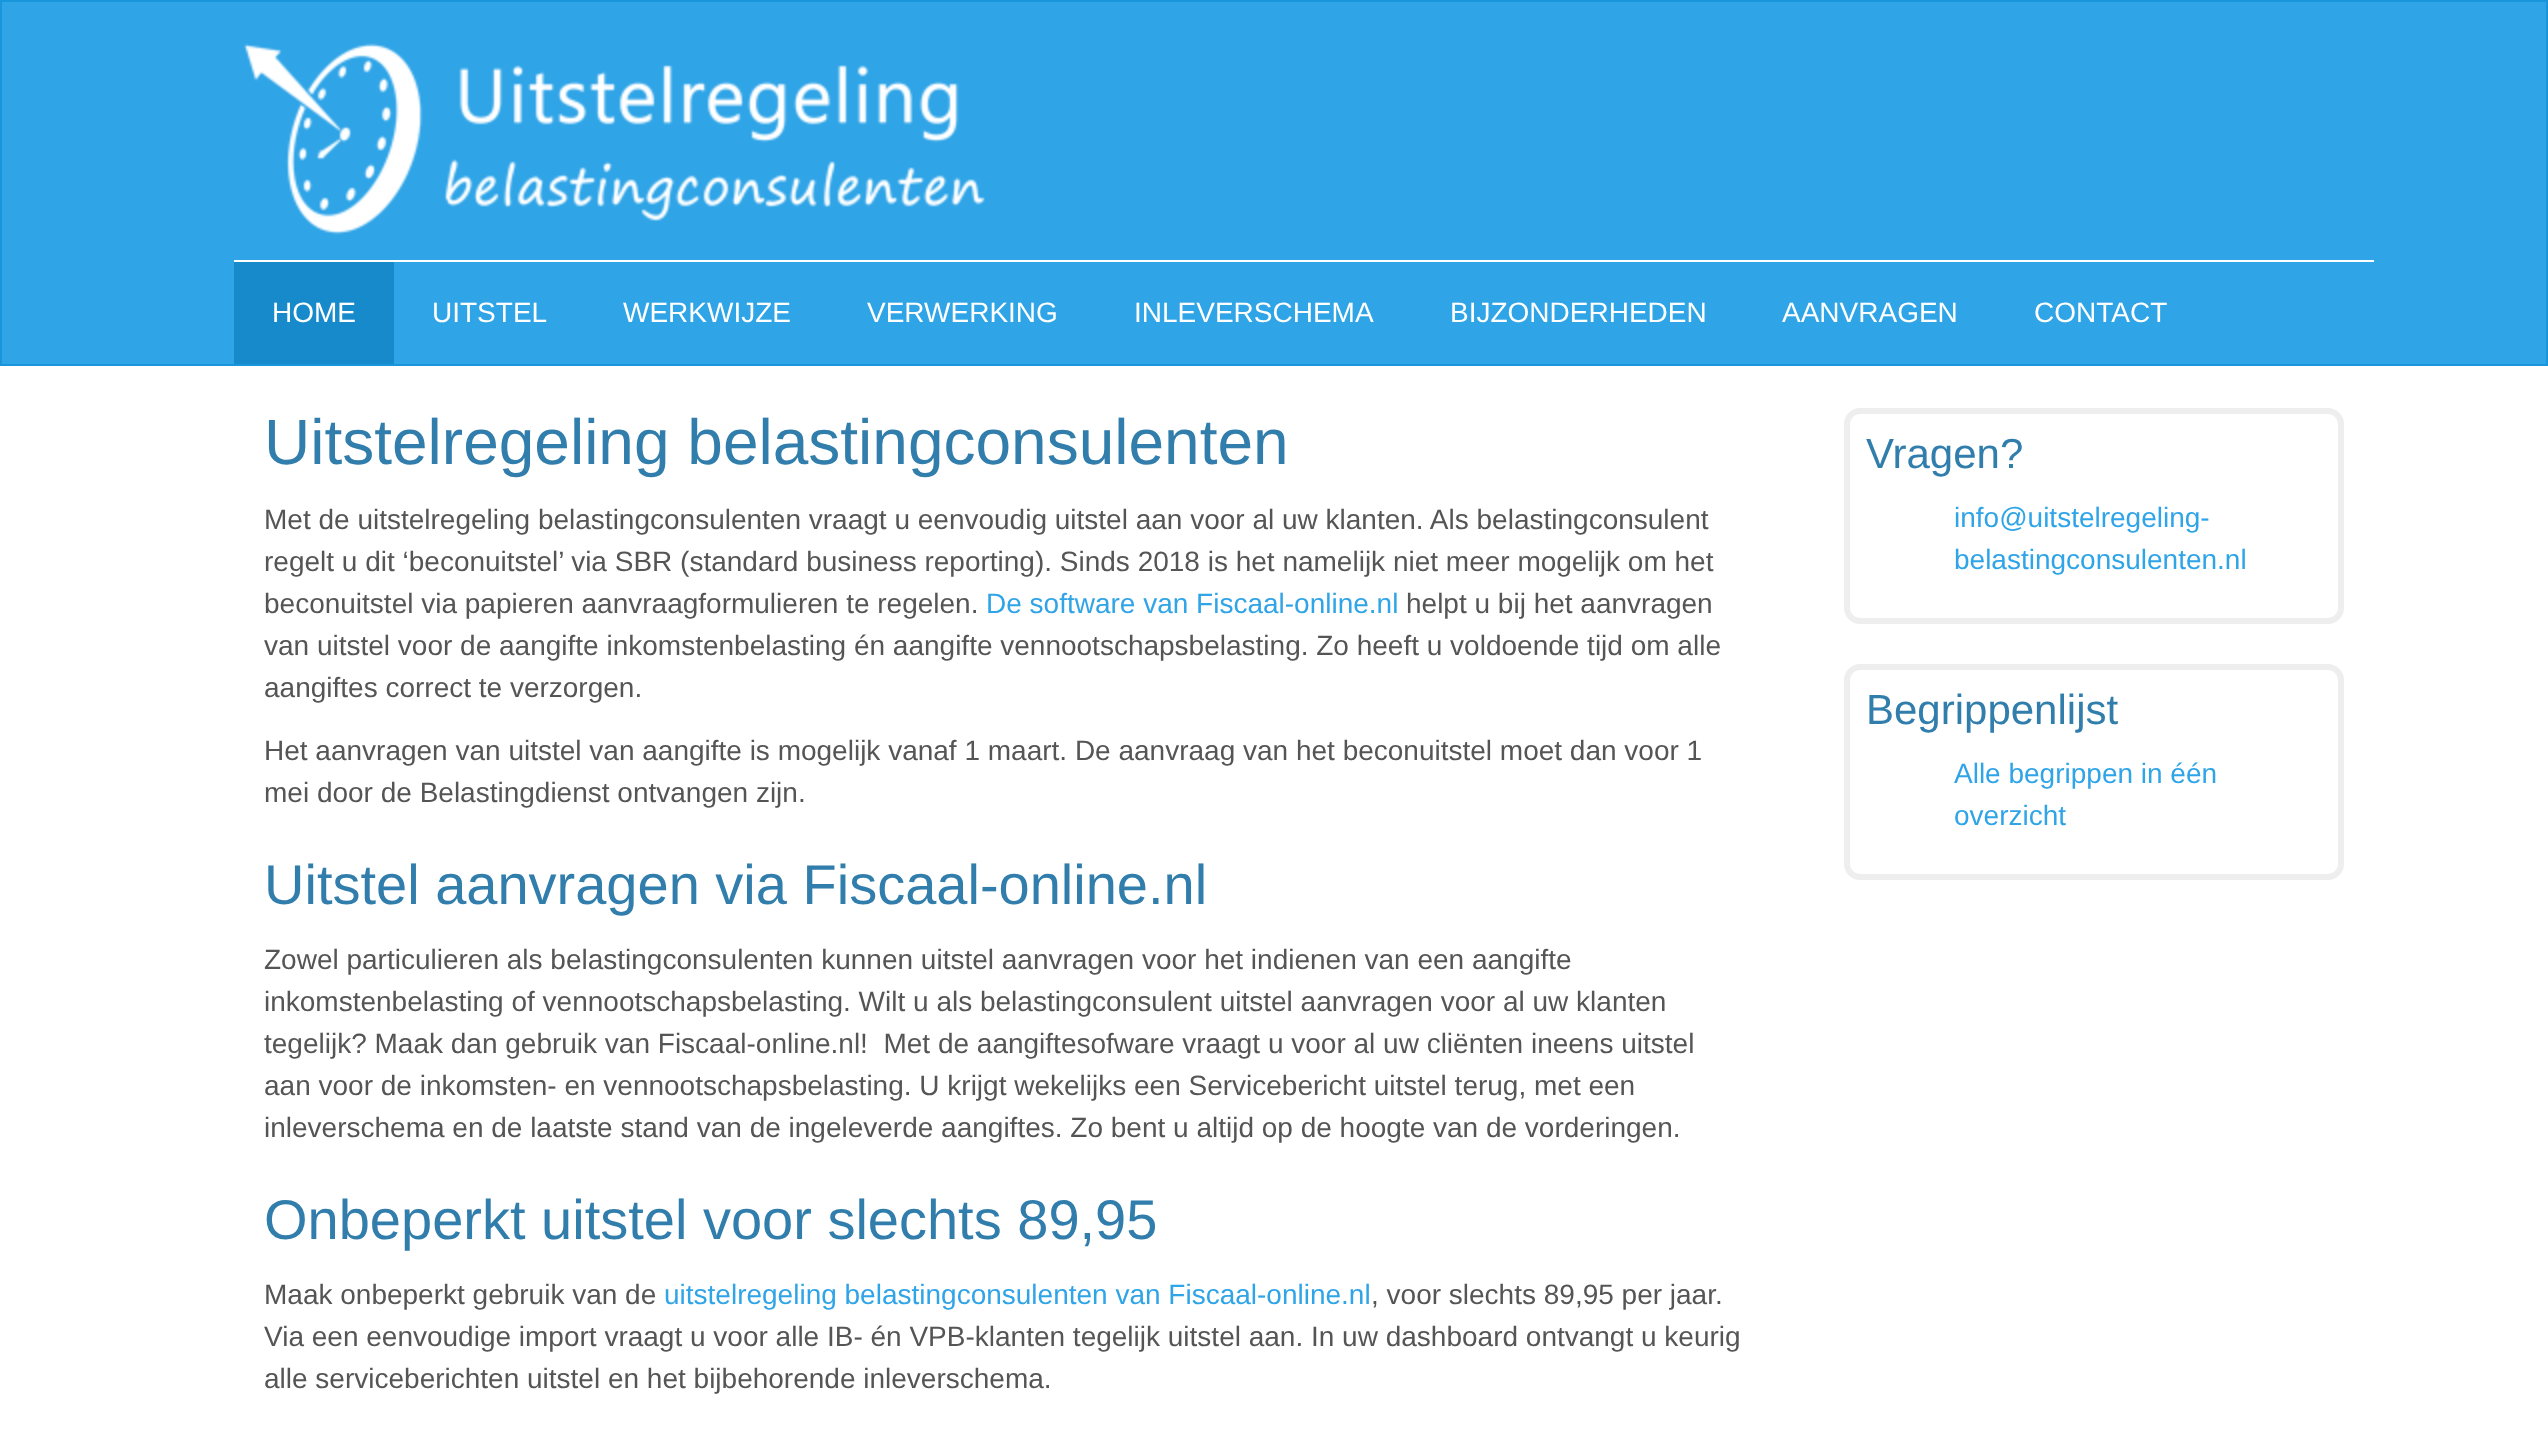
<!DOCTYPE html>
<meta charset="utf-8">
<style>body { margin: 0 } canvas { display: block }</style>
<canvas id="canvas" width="2548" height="1452"></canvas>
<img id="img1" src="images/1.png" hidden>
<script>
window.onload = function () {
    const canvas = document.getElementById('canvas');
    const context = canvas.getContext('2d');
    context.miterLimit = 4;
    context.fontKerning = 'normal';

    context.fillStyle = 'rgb(255, 255, 255)';
    context.fillRect(0, 0, 2548, 1452);
    context.fillStyle = 'rgb(47, 164, 231)';
    context.beginPath();
    context.rect(1, 1, 2546, 364);
    context.fill();
    context.strokeStyle = 'rgb(25, 149, 220)';
    context.lineWidth = 2;
    context.stroke();
    context.drawImage(document.getElementById('img1'), 243, 43, 742, 192);
    context.fillStyle = 'rgb(255, 255, 255)';
    context.fillRect(234, 260, 2140, 2);
    context.fillStyle = 'rgb(23, 138, 204)';
    context.fillRect(234, 262, 160, 102);
    context.beginPath();
    context.roundRect(1847, 411, 494, 210, 13);
    context.strokeStyle = 'rgb(238, 238, 238)';
    context.lineWidth = 6;
    context.stroke();
    context.beginPath();
    context.roundRect(1847, 667, 494, 210, 13);
    context.stroke();
    context.font = '28px Liberation Sans';
    context.fillStyle = 'rgb(255, 255, 255)';
    context.fillText('HOME', 272, 322);
    context.fillText('UITSTEL', 432, 322);
    context.fillText('WERKWIJZE', 623, 322);
    context.fillText('VERWERKING', 867, 322);
    context.fillText('INLEVERSCHEMA', 1134, 322);
    context.fillText('BIJZONDERHEDEN', 1450, 322);
    context.fillText('AANVRAGEN', 1782, 322);
    context.fillText('CONTACT', 2034, 322);
    context.font = '64px Liberation Sans';
    context.fillStyle = 'rgb(49, 126, 172)';
    context.fillText('Uitstelregeling belastingconsulenten', 264, 464);
    context.font = '28px Liberation Sans';
    context.fillStyle = 'rgb(85, 85, 85)';
    context.fillText('Met de uitstelregeling belastingconsulenten vraagt u eenvoudig uitstel aan voor al uw klanten. Als belastingconsulent', 264, 529);
    context.fillText('regelt u dit ‘beconuitstel’ via SBR (standard business reporting). Sinds 2018 is het namelijk niet meer mogelijk om het', 264, 571);
    context.fillText('beconuitstel via papieren aanvraagformulieren te regelen.', 264, 613);
    context.fillStyle = 'rgb(47, 164, 231)';
    context.fillText('De software van Fiscaal-online.nl', 986, 613);
    context.fillStyle = 'rgb(85, 85, 85)';
    context.fillText('helpt u bij het aanvragen', 1406, 613);
    context.fillText('van uitstel voor de aangifte inkomstenbelasting én aangifte vennootschapsbelasting. Zo heeft u voldoende tijd om alle', 264, 655);
    context.fillText('aangiftes correct te verzorgen.', 264, 697);
    context.fillText('Het aanvragen van uitstel van aangifte is mogelijk vanaf 1 maart. De aanvraag van het beconuitstel moet dan voor 1', 264, 760);
    context.fillText('mei door de Belastingdienst ontvangen zijn.', 264, 802);
    context.font = '56px Liberation Sans';
    context.fillStyle = 'rgb(49, 126, 172)';
    context.fillText('Uitstel aanvragen via Fiscaal-online.nl', 264, 904);
    context.font = '28px Liberation Sans';
    context.fillStyle = 'rgb(85, 85, 85)';
    context.fillText('Zowel particulieren als belastingconsulenten kunnen uitstel aanvragen voor het indienen van een aangifte', 264, 969);
    context.fillText('inkomstenbelasting of vennootschapsbelasting. Wilt u als belastingconsulent uitstel aanvragen voor al uw klanten', 264, 1011);
    context.fillText('tegelijk? Maak dan gebruik van Fiscaal-online.nl!  Met de aangiftesofware vraagt u voor al uw cliënten ineens uitstel', 264, 1053);
    context.fillText('aan voor de inkomsten- en vennootschapsbelasting. U krijgt wekelijks een Servicebericht uitstel terug, met een', 264, 1095);
    context.fillText('inleverschema en de laatste stand van de ingeleverde aangiftes. Zo bent u altijd op de hoogte van de vorderingen.', 264, 1137);
    context.font = '56px Liberation Sans';
    context.fillStyle = 'rgb(49, 126, 172)';
    context.fillText('Onbeperkt uitstel voor slechts 89,95', 264, 1239);
    context.font = '28px Liberation Sans';
    context.fillStyle = 'rgb(85, 85, 85)';
    context.fillText('Maak onbeperkt gebruik van de', 264, 1304);
    context.fillStyle = 'rgb(47, 164, 231)';
    context.fillText('uitstelregeling belastingconsulenten van Fiscaal-online.nl', 664, 1304);
    context.fillStyle = 'rgb(85, 85, 85)';
    context.fillText(', voor slechts 89,95 per jaar.', 1371, 1304);
    context.fillText('Via een eenvoudige import vraagt u voor alle IB- én VPB-klanten tegelijk uitstel aan. In uw dashboard ontvangt u keurig', 264, 1346);
    context.fillText('alle serviceberichten uitstel en het bijbehorende inleverschema.', 264, 1388);
    context.font = '42px Liberation Sans';
    context.fillStyle = 'rgb(49, 126, 172)';
    context.fillText('Vragen?', 1866, 468);
    context.font = '28px Liberation Sans';
    context.fillStyle = 'rgb(47, 164, 231)';
    context.fillText('info@uitstelregeling-', 1954, 527);
    context.fillText('belastingconsulenten.nl', 1954, 569);
    context.font = '42px Liberation Sans';
    context.fillStyle = 'rgb(49, 126, 172)';
    context.fillText('Begrippenlijst', 1866, 724);
    context.font = '28px Liberation Sans';
    context.fillStyle = 'rgb(47, 164, 231)';
    context.fillText('Alle begrippen in één', 1954, 783);
    context.fillText('overzicht', 1954, 825);
};
</script>
